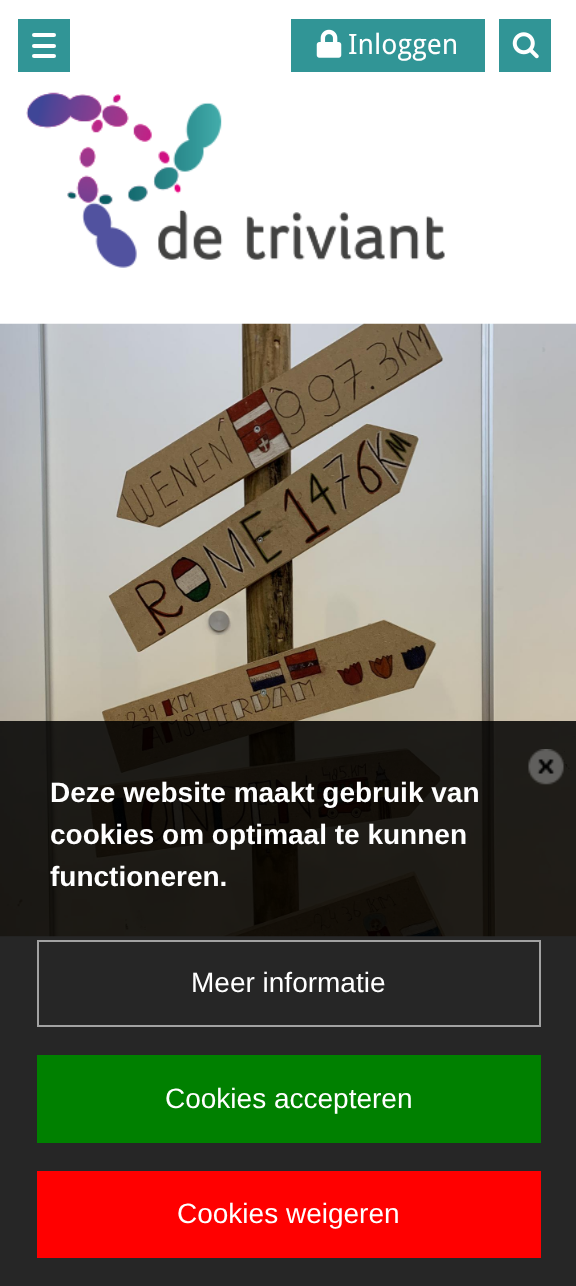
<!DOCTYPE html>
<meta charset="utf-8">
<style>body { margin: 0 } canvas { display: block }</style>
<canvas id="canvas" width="576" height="1286"></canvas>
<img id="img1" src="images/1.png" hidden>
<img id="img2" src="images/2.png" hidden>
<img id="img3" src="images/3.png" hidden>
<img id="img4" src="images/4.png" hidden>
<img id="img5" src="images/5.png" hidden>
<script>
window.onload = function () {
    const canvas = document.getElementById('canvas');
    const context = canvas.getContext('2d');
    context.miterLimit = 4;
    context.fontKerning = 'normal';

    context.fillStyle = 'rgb(255, 255, 255)';
    context.fillRect(0, 0, 576, 1286);
    context.fillStyle = 'rgb(49, 149, 150)';
    context.fillRect(18, 19, 52, 53);
    context.fillStyle = 'rgb(255, 255, 255)';
    context.beginPath();
    context.roundRect(32, 33, 24, 4, 2);
    context.fill();
    context.beginPath();
    context.roundRect(32, 44, 24, 4, 2);
    context.fill();
    context.beginPath();
    context.roundRect(32, 54, 24, 4, 2);
    context.fill();
    context.fillStyle = 'rgb(49, 149, 150)';
    context.fillRect(291, 19, 194, 53);
    context.drawImage(document.getElementById('img1'), 316, 29, 26, 29);
    context.fillRect(499, 19, 52, 53);
    context.drawImage(document.getElementById('img2'), 512, 32, 27, 27);
    context.drawImage(document.getElementById('img3'), 26, 92, 419, 176);
    context.drawImage(document.getElementById('img4'), 0, 323, 576, 614);
    context.fillStyle = 'rgba(0, 0, 0, 0.85)';
    context.fillRect(0, 721, 576, 565);
    context.drawImage(document.getElementById('img5'), 528, 749, 36, 36);
    context.strokeStyle = 'rgb(162, 162, 162)';
    context.lineWidth = 2;
    context.strokeRect(38, 941, 502, 85);
    context.fillStyle = 'rgb(0, 128, 0)';
    context.fillRect(37, 1055, 504, 88);
    context.fillStyle = 'rgb(255, 0, 0)';
    context.fillRect(37, 1171, 504, 87);
    context.font = '28px Droid Sans';
    context.fillStyle = 'rgb(255, 255, 255)';
    context.fillText('Inloggen', 348, 54);
    context.font = 'bold 28px Liberation Sans';
    context.fillText('Deze website maakt gebruik van', 50, 802);
    context.fillText('cookies om optimaal te kunnen', 50, 844);
    context.fillText('functioneren.', 50, 886);
    context.font = '28px Liberation Sans';
    context.fillText('Meer informatie', 191, 992);
    context.fillText('Cookies accepteren', 165, 1108);
    context.fillText('Cookies weigeren', 177, 1223);
};
</script>
